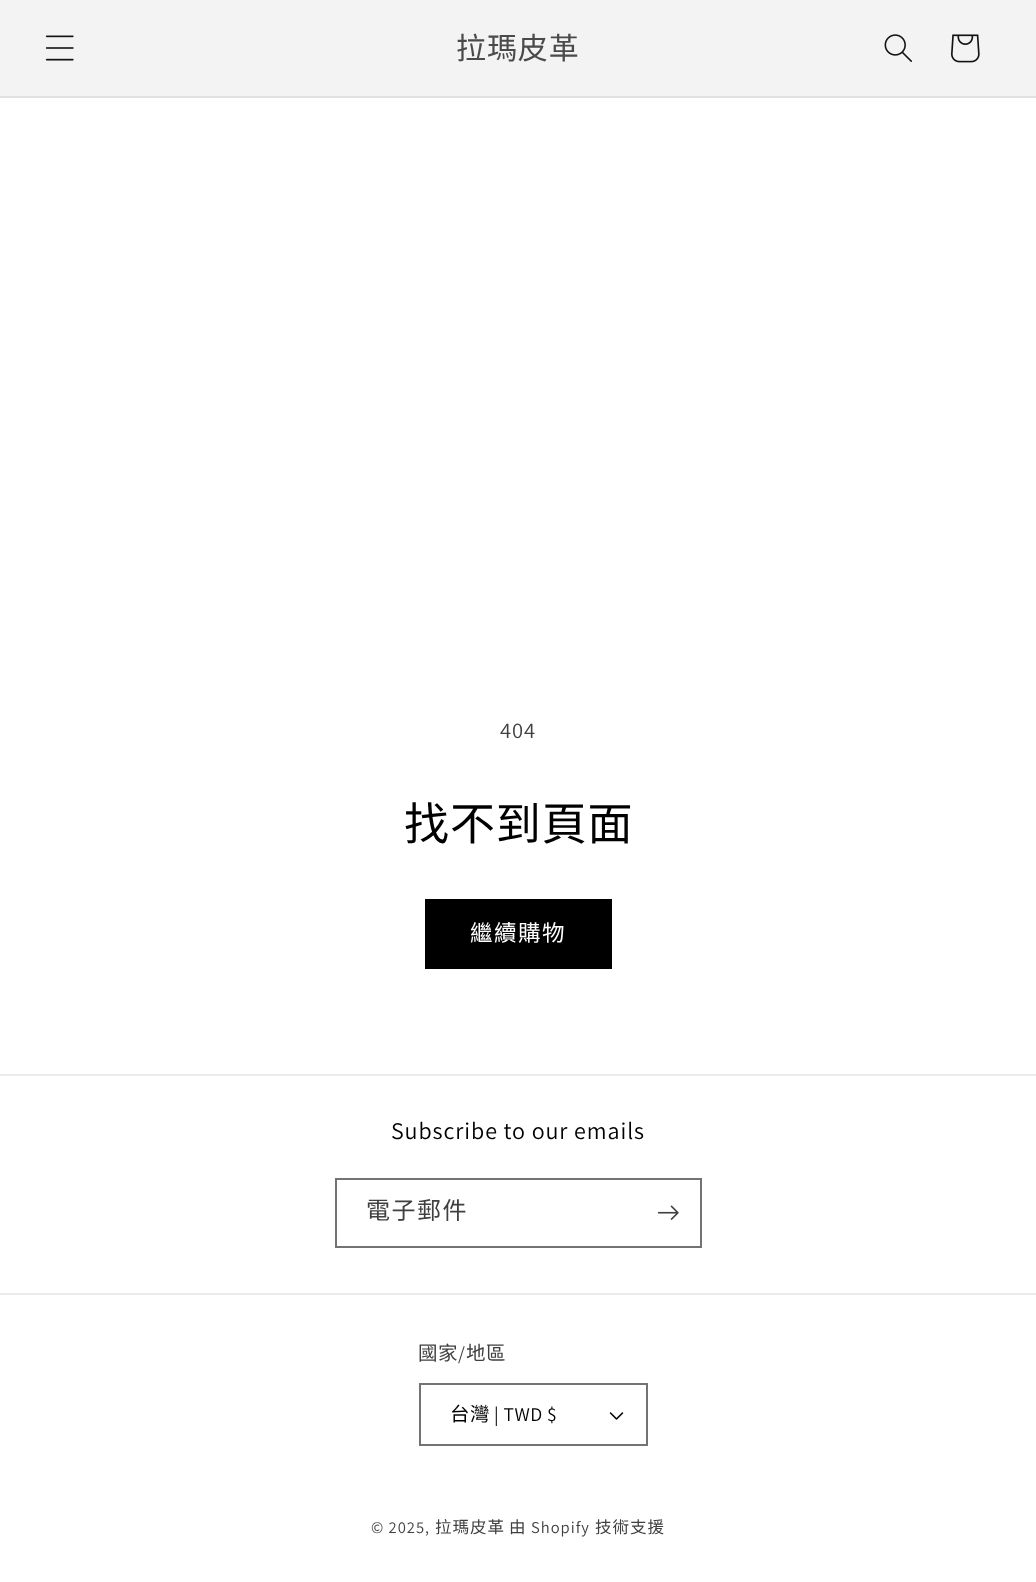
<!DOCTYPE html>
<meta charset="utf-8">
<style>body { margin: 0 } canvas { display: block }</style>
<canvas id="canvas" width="1036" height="1582"></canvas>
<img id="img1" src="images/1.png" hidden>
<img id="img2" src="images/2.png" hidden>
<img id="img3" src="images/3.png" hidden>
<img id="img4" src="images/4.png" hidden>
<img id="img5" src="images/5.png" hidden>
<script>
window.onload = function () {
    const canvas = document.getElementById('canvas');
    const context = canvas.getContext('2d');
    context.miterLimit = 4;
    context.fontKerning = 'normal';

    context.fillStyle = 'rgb(255, 255, 255)';
    context.fillRect(0, 0, 1036, 1582);
    context.fillStyle = 'rgb(243, 243, 243)';
    context.fillRect(0, 0, 1036, 96);
    context.fillStyle = 'rgb(225, 225, 225)';
    context.fillRect(0, 96, 1036, 2);
    context.drawImage(document.getElementById('img1'), 45, 35, 29, 26);
    context.drawImage(document.getElementById('img2'), 884, 34, 28, 28);
    context.drawImage(document.getElementById('img3'), 951, 34, 29, 29);
    context.fillStyle = 'rgb(0, 0, 0)';
    context.fillRect(425, 899, 187, 70);
    context.fillStyle = 'rgb(235, 235, 235)';
    context.fillRect(0, 1074, 1036, 2);
    context.strokeStyle = 'rgb(115, 115, 115)';
    context.lineWidth = 2;
    context.strokeRect(336, 1179, 365, 68);
    context.drawImage(document.getElementById('img4'), 657, 1205, 22, 15);
    context.fillRect(0, 1293, 1036, 2);
    context.drawImage(document.getElementById('img5'), 609, 1412, 15, 8);
    context.strokeRect(420, 1384, 227, 61);
    context.letterSpacing = '0.9px';
    context.font = '30px Noto Sans CJK TC';
    context.fillStyle = 'rgb(74, 74, 74)';
    context.fillText('拉瑪皮革', 456, 59);
    context.font = '22.5px Assistant';
    context.fillStyle = 'rgb(64, 64, 64)';
    context.fillText('404', 500, 738);
    context.font = '45px Noto Sans CJK TC';
    context.fillStyle = 'rgb(0, 0, 0)';
    context.fillText('找不到頁面', 404, 840);
    context.letterSpacing = '1.5px';
    context.font = '22.5px Noto Sans CJK TC';
    context.fillStyle = 'rgb(255, 255, 255)';
    context.fillText('繼續購物', 470, 941);
    context.letterSpacing = '0.9px';
    context.font = '24px Assistant';
    context.fillStyle = 'rgb(0, 0, 0)';
    context.fillText('Subscribe to our emails', 391, 1139);
    context.letterSpacing = '1.5px';
    context.font = '24px Noto Sans CJK TC';
    context.fillStyle = 'rgb(64, 64, 64)';
    context.fillText('電子郵件', 366, 1219);
    context.letterSpacing = '0.5px';
    context.font = '19.5px Noto Sans CJK TC';
    context.fillText('國家', 418, 1360);
    context.font = '19.5px Assistant';
    context.fillText('/', 458, 1360);
    context.font = '19.5px Noto Sans CJK TC';
    context.fillText('地區', 466, 1360);
    context.fillStyle = 'rgb(0, 0, 0)';
    context.fillText('台灣', 450, 1421);
    context.font = '19.5px Assistant';
    context.fillText('| TWD $', 494, 1421);
    context.letterSpacing = '1px';
    context.font = '16.5px Assistant';
    context.fillStyle = 'rgb(64, 64, 64)';
    context.fillText('© 2025,', 371, 1533);
    context.font = '16.5px Noto Sans CJK TC';
    context.fillText('拉瑪皮革', 435, 1533);
    context.fillText('由', 509, 1533);
    context.font = '16.5px Assistant';
    context.fillText('Shopify', 531, 1533);
    context.font = '16.5px Noto Sans CJK TC';
    context.fillText('技術支援', 595, 1533);
};
</script>
